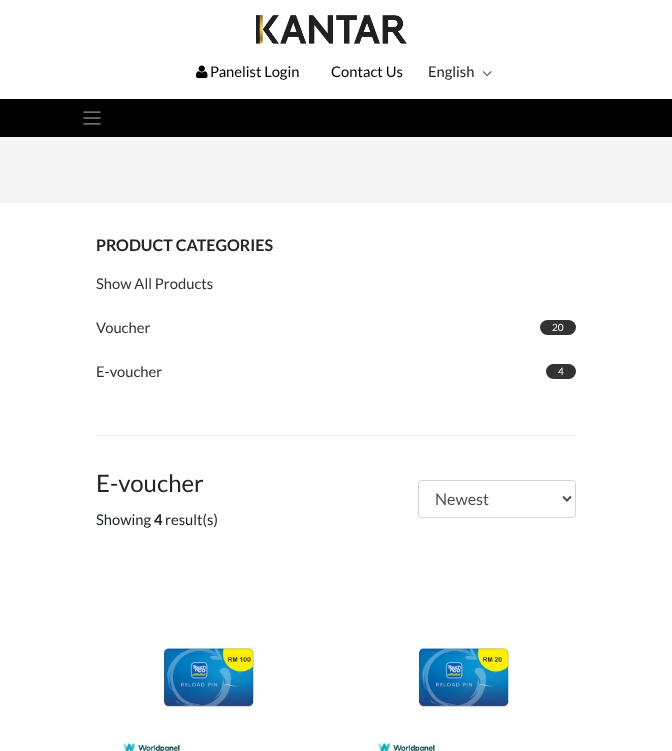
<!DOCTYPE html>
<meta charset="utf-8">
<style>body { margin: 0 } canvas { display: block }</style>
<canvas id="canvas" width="672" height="751"></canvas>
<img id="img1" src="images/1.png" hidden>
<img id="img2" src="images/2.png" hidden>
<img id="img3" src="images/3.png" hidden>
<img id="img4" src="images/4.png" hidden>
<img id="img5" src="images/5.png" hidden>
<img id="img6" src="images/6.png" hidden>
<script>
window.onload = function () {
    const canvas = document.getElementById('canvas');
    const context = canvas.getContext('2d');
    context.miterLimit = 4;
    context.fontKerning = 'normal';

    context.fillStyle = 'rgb(255, 255, 255)';
    context.fillRect(0, 0, 672, 751);
    context.drawImage(document.getElementById('img1'), 256, 15, 151, 29);
    context.drawImage(document.getElementById('img2'), 196, 65, 12, 14);
    context.drawImage(document.getElementById('img3'), 482, 71, 10, 6);
    context.fillStyle = 'rgb(0, 0, 0)';
    context.fillRect(0, 99, 672, 38);
    context.drawImage(document.getElementById('img4'), 83, 111, 18, 14);
    context.fillStyle = 'rgb(245, 245, 245)';
    context.fillRect(0, 137, 672, 66);
    context.fillStyle = 'rgb(238, 238, 238)';
    context.fillRect(96, 435, 480, 1);
    context.fillStyle = 'rgb(51, 51, 51)';
    context.beginPath();
    context.roundRect(540, 320, 36, 15, 7.5);
    context.fill();
    context.beginPath();
    context.roundRect(546, 364, 30, 15, 7.5);
    context.fill();
    context.beginPath();
    context.roundRect(418.5, 480.5, 157, 37, 3.5);
    context.strokeStyle = 'rgb(206, 212, 218)';
    context.stroke();
    context.beginPath();
    context.moveTo(563, 496.5);
    context.lineTo(567, 500.5);
    context.lineTo(571, 496.5);
    context.strokeStyle = 'rgb(73, 80, 87)';
    context.lineWidth = 2;
    context.stroke();
    context.drawImage(document.getElementById('img5'), 116, 644, 142, 107);
    context.drawImage(document.getElementById('img6'), 371, 644, 142, 107);
    context.font = '14.75px Lato';
    context.fillStyle = 'rgb(0, 0, 0)';
    context.fillText('Panelist Login', 210, 77);
    context.fillText('Contact Us', 331, 77);
    context.fillStyle = 'rgb(33, 37, 41)';
    context.fillText('English', 428, 77);
    context.font = 'bold 16px Lato';
    context.fillText('PRODUCT CATEGORIES', 96, 251);
    context.font = '14.75px Lato';
    context.fillStyle = 'rgb(51, 51, 51)';
    context.fillText('Show All Products', 96, 289);
    context.fillText('Voucher', 96, 333);
    context.font = '10px Lato';
    context.fillStyle = 'rgb(255, 255, 255)';
    context.fillText('20', 552, 331);
    context.font = '14.75px Lato';
    context.fillStyle = 'rgb(51, 51, 51)';
    context.fillText('E-voucher', 96, 377);
    context.font = '10px Lato';
    context.fillStyle = 'rgb(255, 255, 255)';
    context.fillText('4', 558, 375);
    context.font = '24px Lato';
    context.fillStyle = 'rgb(33, 37, 41)';
    context.fillText('E-voucher', 96, 492);
    context.font = '16px Lato';
    context.fillStyle = 'rgb(73, 80, 87)';
    context.fillText('Newest', 435, 505);
    context.font = '14.75px Lato';
    context.fillStyle = 'rgb(33, 37, 41)';
    context.fillText('Showing', 96, 525);
    context.font = 'bold 14.75px Lato';
    context.fillText('4', 154, 525);
    context.font = '14.75px Lato';
    context.fillText('result(s)', 165, 525);
};
</script>
